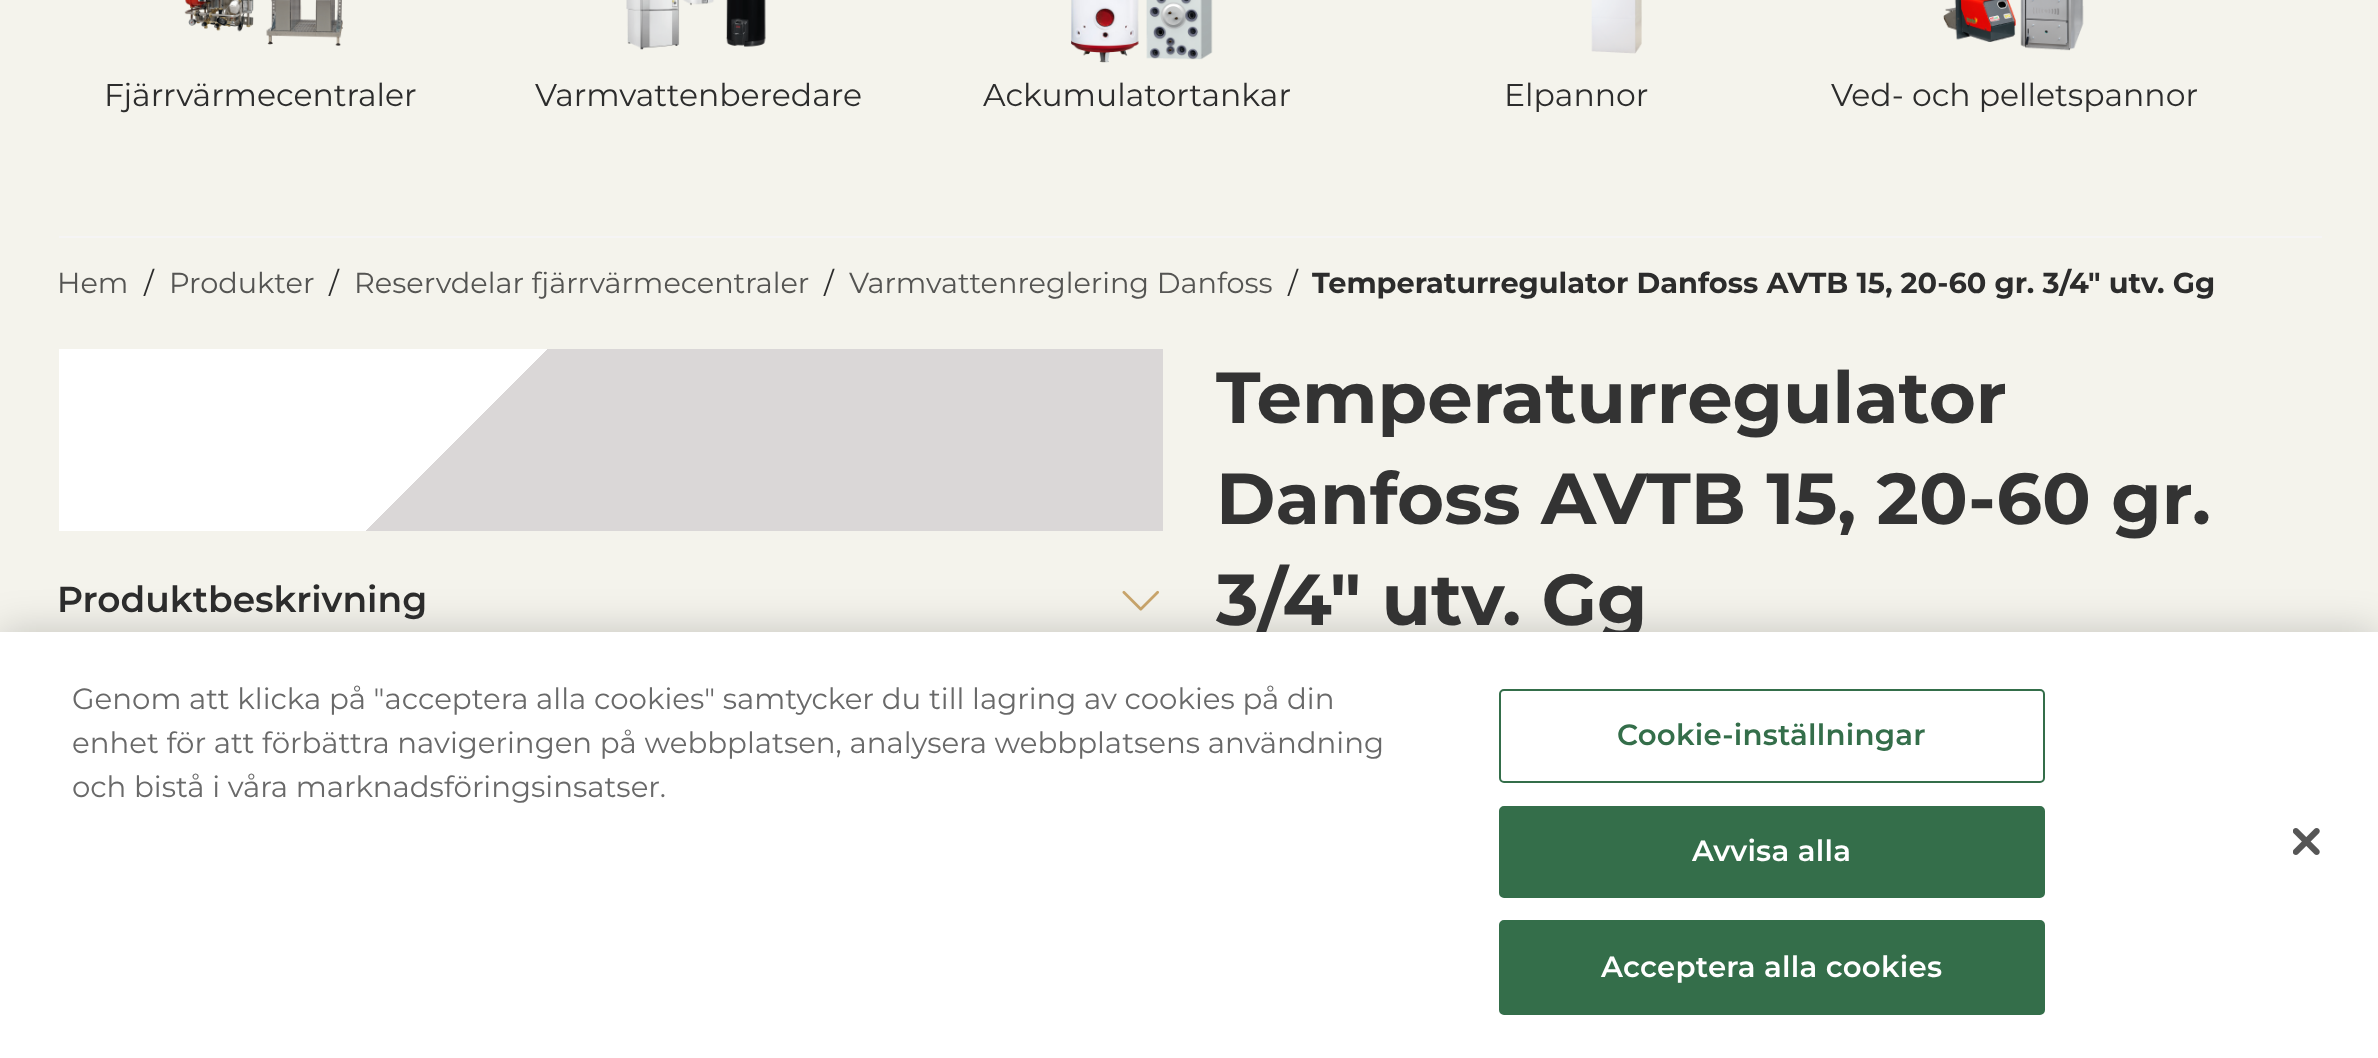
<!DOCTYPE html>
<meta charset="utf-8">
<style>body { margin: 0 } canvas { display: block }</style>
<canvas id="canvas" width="2378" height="1058"></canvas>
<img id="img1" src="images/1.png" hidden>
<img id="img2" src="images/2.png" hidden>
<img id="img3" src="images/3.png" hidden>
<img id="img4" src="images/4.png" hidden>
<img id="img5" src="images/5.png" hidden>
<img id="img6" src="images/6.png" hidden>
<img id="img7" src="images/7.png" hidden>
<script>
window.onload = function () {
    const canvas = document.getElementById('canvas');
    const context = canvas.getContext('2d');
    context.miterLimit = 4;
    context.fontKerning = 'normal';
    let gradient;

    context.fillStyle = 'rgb(244, 243, 236)';
    context.fillRect(0, 0, 2378, 1058);
    context.drawImage(document.getElementById('img1'), 184, 0, 159, 46);
    context.drawImage(document.getElementById('img2'), 626, 0, 140, 50);
    context.drawImage(document.getElementById('img3'), 1071, 0, 142, 63);
    context.drawImage(document.getElementById('img4'), 1591, 0, 51, 54);
    context.drawImage(document.getElementById('img5'), 1943, 0, 141, 51);
    context.fillStyle = 'rgb(245, 244, 245)';
    context.fillRect(59, 236, 2263, 2);
    gradient = context.createLinearGradient(289, 118, 933, 762);
    gradient.addColorStop(0, 'rgb(255, 255, 255)');
    gradient.addColorStop(0.38, 'rgb(255, 255, 255)');
    gradient.addColorStop(0.38, 'rgb(218, 215, 215)');
    gradient.addColorStop(1, 'rgb(218, 215, 215)');
    context.fillStyle = gradient;
    context.fillRect(59, 349, 1104, 182);
    context.drawImage(document.getElementById('img6'), 1122, 590, 37, 21);
    context.fillStyle = 'rgba(0, 0, 0, 0.2)';
    context.filter = 'blur(20px)';
    context.beginPath();
    context.rect(0, 632, 2378, 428);
    context.fill();
    context.filter = 'none';
    context.font = '31.5px Montserrat';
    context.fillStyle = 'rgb(44, 44, 44)';
    context.fillText('Fjärrvärmecentraler', 104, 106);
    context.fillText('Varmvattenberedare', 535, 106);
    context.fillText('Ackumulatortankar', 983, 106);
    context.fillText('Elpannor', 1504, 106);
    context.fillText('Ved- och pelletspannor', 1831, 106);
    context.font = '28.8px Montserrat';
    context.fillStyle = 'rgb(84, 84, 82)';
    context.fillText('Hem', 57, 293);
    context.fillStyle = 'rgb(44, 44, 44)';
    context.fillText('/', 144, 293);
    context.fillStyle = 'rgb(84, 84, 82)';
    context.fillText('Produkter', 169, 293);
    context.fillStyle = 'rgb(44, 44, 44)';
    context.fillText('/', 329, 293);
    context.fillStyle = 'rgb(84, 84, 82)';
    context.fillText('Reservdelar fjärrvärmecentraler', 354, 293);
    context.fillStyle = 'rgb(44, 44, 44)';
    context.fillText('/', 824, 293);
    context.fillStyle = 'rgb(84, 84, 82)';
    context.fillText('Varmvattenreglering Danfoss', 849, 293);
    context.fillStyle = 'rgb(44, 44, 44)';
    context.fillText('/', 1288, 293);
    context.font = 'bold 28.8px Montserrat';
    context.fillText('Temperaturregulator Danfoss AVTB 15, 20-60 gr. 3/4" utv. Gg', 1312, 293);
    context.font = '600 36px Montserrat';
    context.fillText('Produktbeskrivning', 57, 612);
    context.font = 'bold 72px Montserrat';
    context.fillStyle = 'rgb(51, 51, 51)';
    context.fillText('Temperaturregulator', 1216, 423);
    context.fillText('Danfoss AVTB 15, 20-60 gr.', 1216, 524);
    context.fillText('3/4" utv. Gg', 1216, 625);
    context.fillStyle = 'rgb(255, 255, 255)';
    context.fillRect(0, 632, 2378, 426);
    context.font = '29.25px Montserrat';
    context.fillStyle = 'rgb(105, 105, 105)';
    context.fillText('Genom att klicka på "acceptera alla cookies" samtycker du till lagring av cookies på din', 72, 709);
    context.fillText('enhet för att förbättra navigeringen på webbplatsen, analysera webbplatsens användning', 72, 753);
    context.fillText('och bistå i våra marknadsföringsinsatser.', 72, 797);
    context.beginPath();
    context.roundRect(1500, 690, 544, 92, 4);
    context.strokeStyle = 'rgb(52, 110, 74)';
    context.lineWidth = 2;
    context.stroke();
    context.letterSpacing = '0.25px';
    context.font = '600 29.25px Montserrat';
    context.fillStyle = 'rgb(52, 110, 74)';
    context.fillText('Cookie-inställningar', 1617, 745);
    context.beginPath();
    context.roundRect(1500, 807, 544, 90, 4);
    context.fill();
    context.stroke();
    context.fillStyle = 'rgb(255, 255, 255)';
    context.fillText('Avvisa alla', 1692, 861);
    context.fillStyle = 'rgb(52, 110, 74)';
    context.beginPath();
    context.roundRect(1500, 921, 544, 93, 4);
    context.fill();
    context.stroke();
    context.fillStyle = 'rgb(255, 255, 255)';
    context.fillText('Acceptera alla cookies', 1601, 977);
    context.drawImage(document.getElementById('img7'), 2293, 828, 27, 27);
};
</script>
